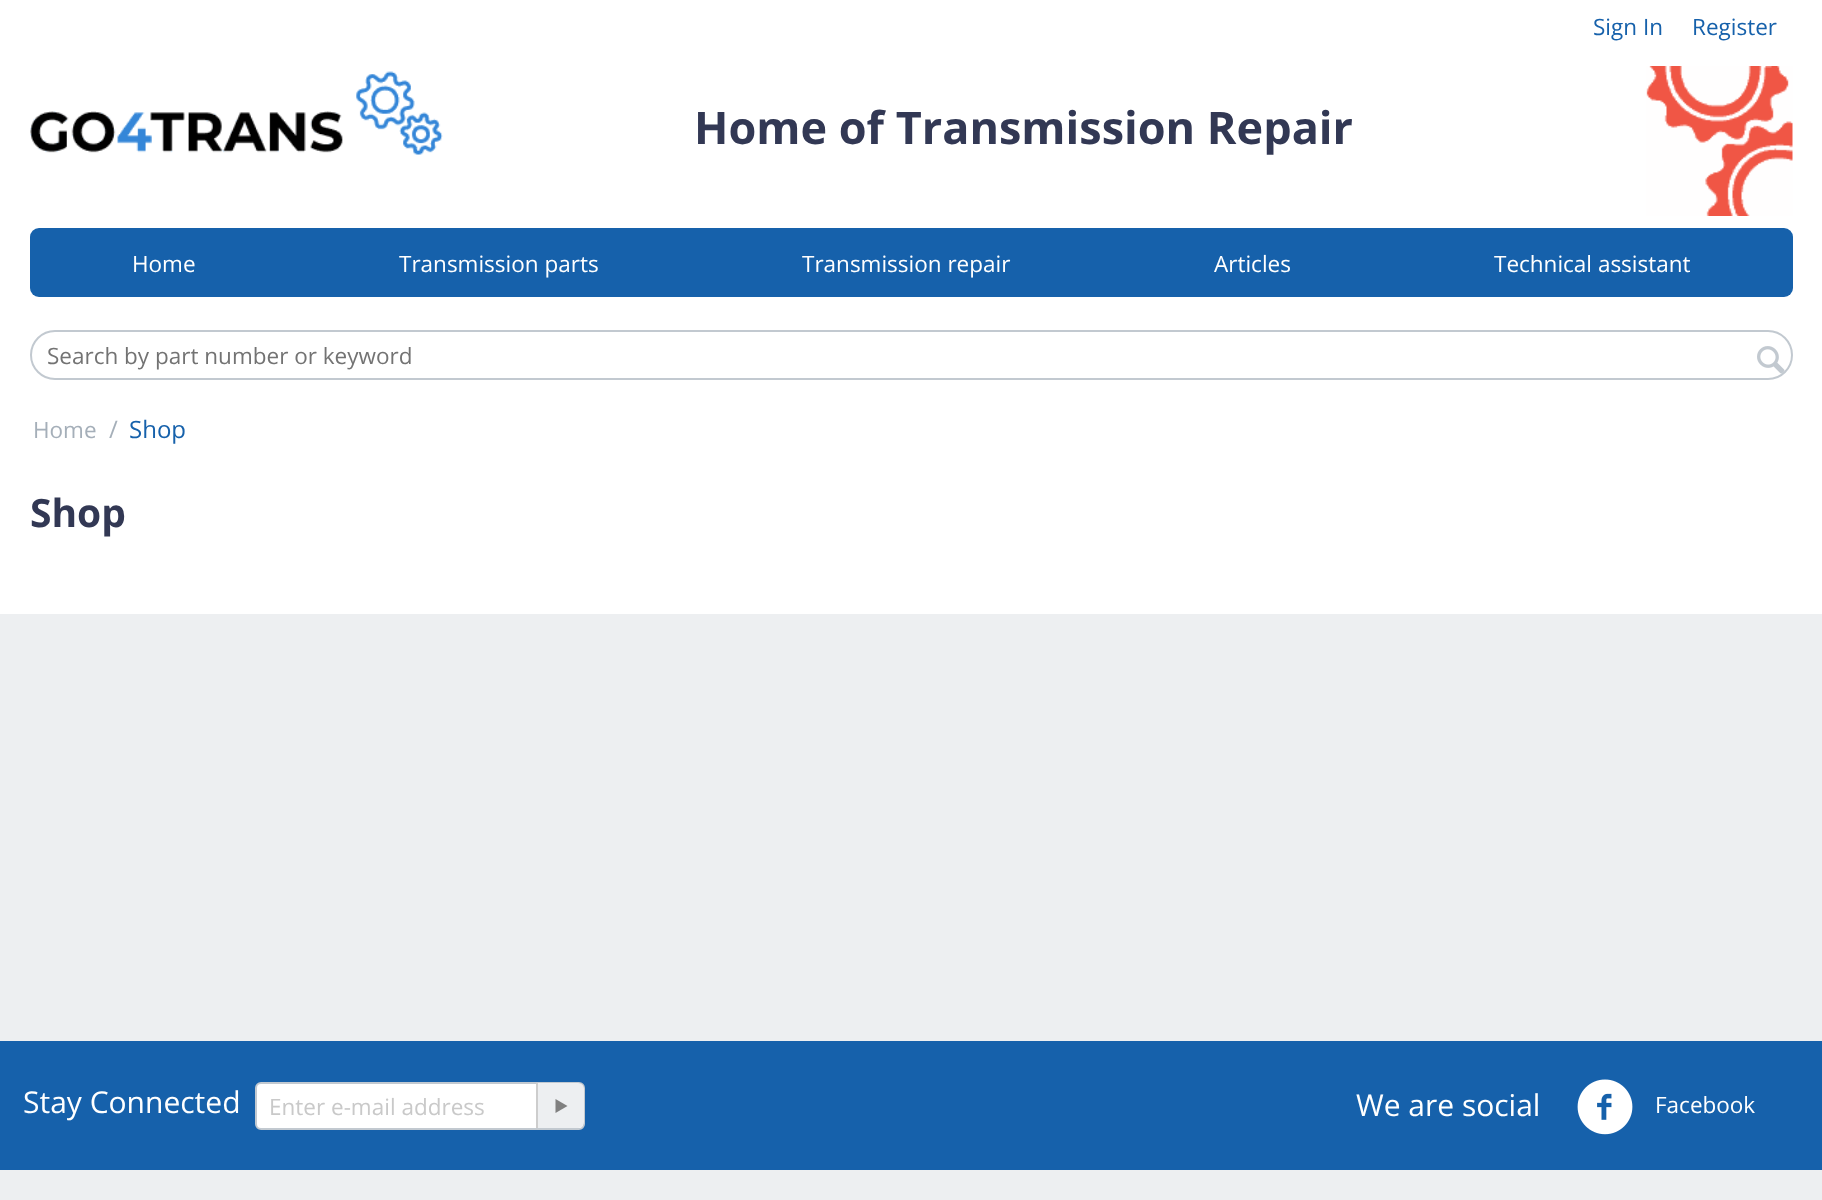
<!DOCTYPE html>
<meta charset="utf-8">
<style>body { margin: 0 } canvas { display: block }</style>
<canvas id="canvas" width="1822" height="1200"></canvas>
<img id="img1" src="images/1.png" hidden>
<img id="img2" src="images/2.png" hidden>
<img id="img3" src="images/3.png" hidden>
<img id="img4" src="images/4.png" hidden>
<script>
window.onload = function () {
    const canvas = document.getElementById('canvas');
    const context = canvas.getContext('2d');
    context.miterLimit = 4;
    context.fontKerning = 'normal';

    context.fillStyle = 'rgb(255, 255, 255)';
    context.fillRect(0, 0, 1822, 1200);
    context.drawImage(document.getElementById('img1'), 30, 71, 413, 84);
    context.drawImage(document.getElementById('img2'), 1646, 66, 147, 150);
    context.fillStyle = 'rgb(22, 97, 171)';
    context.beginPath();
    context.roundRect(30, 228, 1763, 69, 9);
    context.fill();
    context.beginPath();
    context.roundRect(31, 331, 1761, 48, 24);
    context.strokeStyle = 'rgb(194, 201, 208)';
    context.lineWidth = 2;
    context.stroke();
    context.drawImage(document.getElementById('img3'), 1757, 346, 28, 28);
    context.fillStyle = 'rgb(237, 239, 241)';
    context.fillRect(0, 614, 1822, 586);
    context.fillStyle = 'rgb(22, 97, 171)';
    context.fillRect(0, 1041, 1822, 129);
    context.fillStyle = 'rgb(255, 255, 255)';
    context.beginPath();
    context.roundRect(256, 1083, 328, 46, 5);
    context.fill();
    context.stroke();
    context.fillStyle = 'rgb(237, 239, 241)';
    context.beginPath();
    context.roundRect(536, 1083, 48, 45, [0, 6, 6, 0]);
    context.fill();
    context.fillStyle = 'rgb(205, 205, 205)';
    context.fillRect(536, 1083, 2, 45);
    context.fillStyle = 'rgb(128, 128, 128)';
    context.beginPath();
    context.moveTo(555.5, 1099);
    context.lineTo(567.5, 1106);
    context.lineTo(555.5, 1113);
    context.closePath();
    context.fill();
    context.drawImage(document.getElementById('img4'), 1577, 1079, 56, 56);
    context.font = '22.5px Open Sans';
    context.fillStyle = 'rgb(22, 97, 171)';
    context.fillText('Sign In', 1593, 35);
    context.fillText('Register', 1692, 35);
    context.font = 'bold 45px Open Sans';
    context.fillStyle = 'rgb(50, 56, 84)';
    context.fillText('Home of Transmission Repair', 694, 144);
    context.font = '22.5px Open Sans';
    context.fillStyle = 'rgb(255, 255, 255)';
    context.fillText('Home', 132, 272);
    context.fillText('Transmission parts', 399, 272);
    context.fillText('Transmission repair', 802, 272);
    context.fillText('Articles', 1214, 272);
    context.fillText('Technical assistant', 1494, 272);
    context.fillStyle = 'rgb(115, 115, 115)';
    context.fillText('Search by part number or keyword', 47, 364);
    context.fillStyle = 'rgb(165, 175, 185)';
    context.fillText('Home', 33, 438);
    context.font = '24px Open Sans';
    context.fillText('/', 109, 438);
    context.fillStyle = 'rgb(22, 97, 171)';
    context.fillText('Shop', 129, 438);
    context.font = 'bold 39px Open Sans';
    context.fillStyle = 'rgb(50, 56, 84)';
    context.fillText('Shop', 30, 527);
    context.font = '30px Open Sans';
    context.fillStyle = 'rgb(255, 255, 255)';
    context.fillText('Stay Connected', 23, 1113);
    context.font = '22.5px Open Sans';
    context.fillStyle = 'rgb(201, 201, 201)';
    context.fillText('Enter e-mail address', 269, 1115);
    context.font = '30px Open Sans';
    context.fillStyle = 'rgb(255, 255, 255)';
    context.fillText('We are social', 1356, 1116);
    context.font = '22.5px Open Sans';
    context.fillText('Facebook', 1655, 1113);
};
</script>
